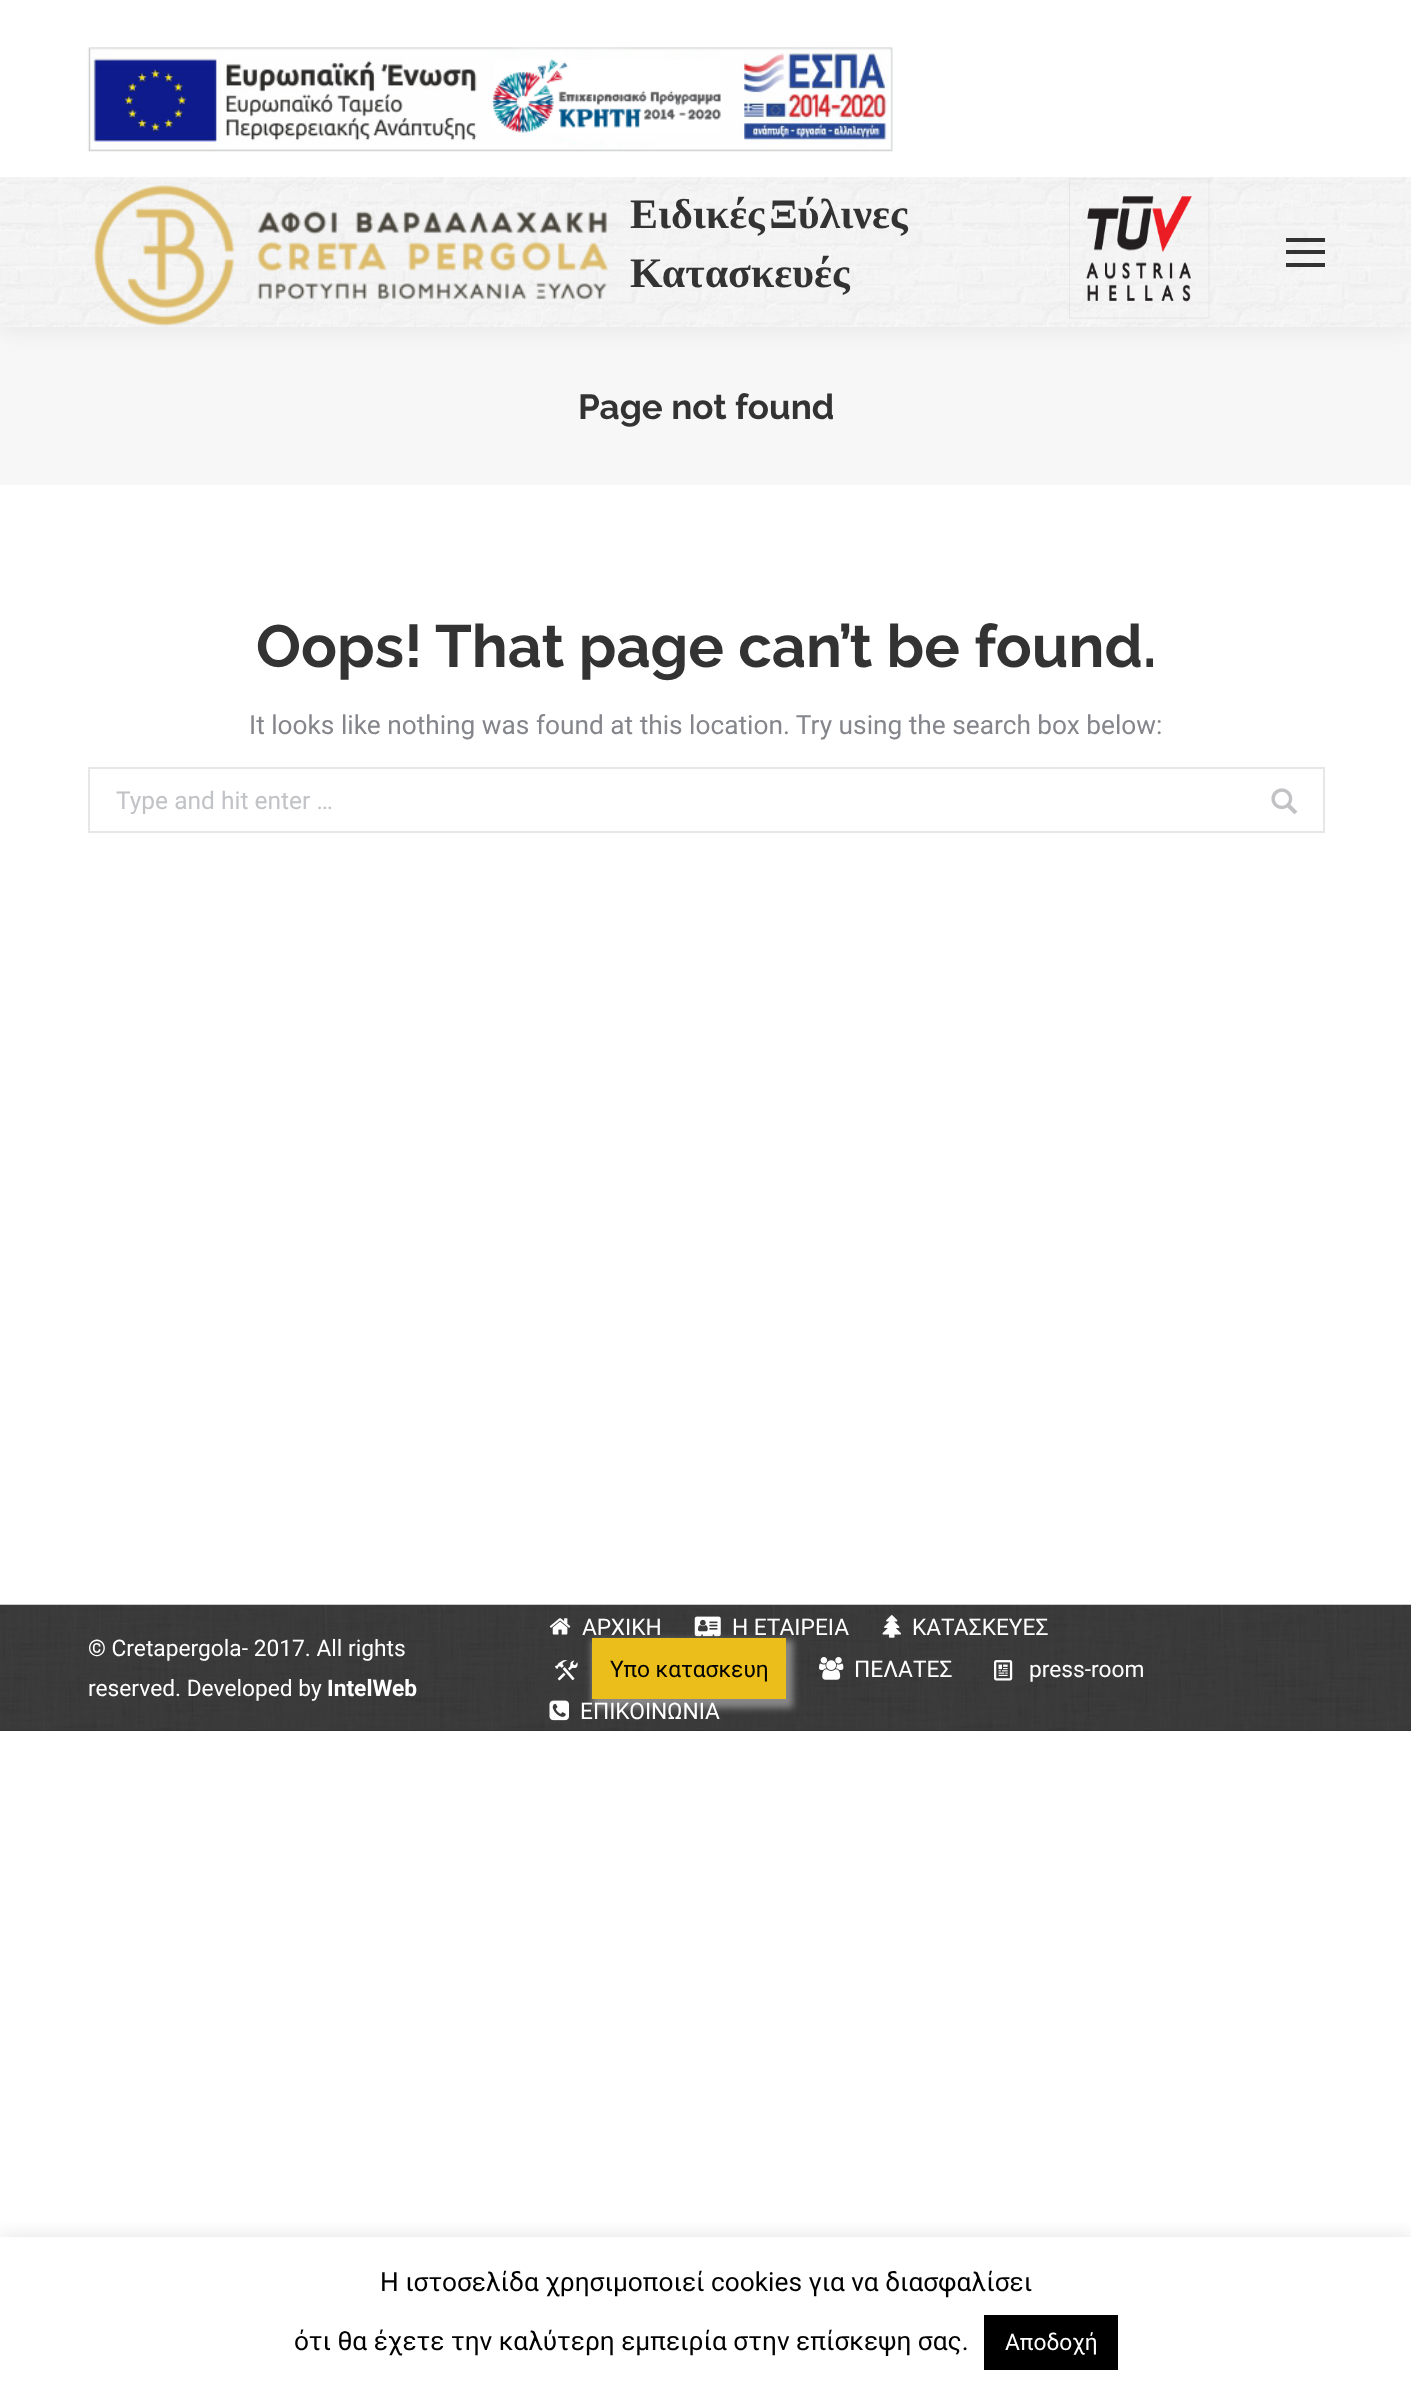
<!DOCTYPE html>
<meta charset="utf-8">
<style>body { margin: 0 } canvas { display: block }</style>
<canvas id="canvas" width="1411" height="2389"></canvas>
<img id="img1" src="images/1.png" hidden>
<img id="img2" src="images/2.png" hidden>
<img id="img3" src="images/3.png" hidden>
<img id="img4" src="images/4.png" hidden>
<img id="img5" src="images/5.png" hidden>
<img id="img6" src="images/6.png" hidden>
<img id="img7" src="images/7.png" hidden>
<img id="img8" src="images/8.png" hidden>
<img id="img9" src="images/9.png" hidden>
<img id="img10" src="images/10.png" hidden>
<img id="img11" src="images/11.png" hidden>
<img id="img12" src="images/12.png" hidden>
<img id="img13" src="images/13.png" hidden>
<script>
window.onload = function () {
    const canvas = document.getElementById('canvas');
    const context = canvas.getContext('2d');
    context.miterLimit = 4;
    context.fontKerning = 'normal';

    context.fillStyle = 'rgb(255, 255, 255)';
    context.fillRect(0, 0, 1411, 2389);
    context.fillStyle = 'rgb(247, 247, 247)';
    context.fillRect(0, 327, 1411, 158);
    context.fillStyle = 'rgba(0, 0, 0, 0.07)';
    context.filter = 'blur(13px)';
    context.beginPath();
    context.rect(-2, -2, 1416, 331);
    context.fill();
    context.filter = 'none';
    context.drawImage(document.getElementById('img1'), 0, 177, 1411, 150);
    context.fillStyle = 'rgb(255, 255, 255)';
    context.fillRect(0, 0, 1411, 177);
    context.drawImage(document.getElementById('img2'), 87, 47, 806, 105);
    context.drawImage(document.getElementById('img3'), 93, 185, 516, 141);
    context.drawImage(document.getElementById('img4'), 1069, 178, 141, 141);
    context.fillStyle = 'rgb(51, 51, 51)';
    context.fillRect(1286, 250, 39, 4);
    context.fillRect(1286, 238, 39, 4);
    context.fillRect(1286, 263, 39, 4);
    context.strokeStyle = 'rgb(231, 231, 231)';
    context.lineWidth = 2;
    context.strokeRect(89, 768, 1235, 64);
    context.drawImage(document.getElementById('img5'), 1271, 788, 27, 27);
    context.fillStyle = 'rgb(40, 42, 45)';
    context.fillRect(0, 1730, 1411, 1);
    context.drawImage(document.getElementById('img6'), 0, 1604, 1411, 127);
    context.drawImage(document.getElementById('img7'), 549, 1618, 22, 17);
    context.drawImage(document.getElementById('img8'), 694, 1616, 27, 21);
    context.drawImage(document.getElementById('img9'), 882, 1615, 19, 23);
    context.drawImage(document.getElementById('img10'), 554, 1660, 24, 21);
    context.fillStyle = 'rgb(136, 136, 136)';
    context.filter = 'blur(3.5px)';
    context.beginPath();
    context.rect(592, 1640, 201, 68);
    context.fill();
    context.filter = 'none';
    context.fillStyle = 'rgb(235, 190, 27)';
    context.fillRect(592, 1638, 194, 61);
    context.drawImage(document.getElementById('img11'), 819, 1657, 25, 23);
    context.drawImage(document.getElementById('img12'), 994, 1660, 19, 21);
    context.drawImage(document.getElementById('img13'), 549, 1700, 20, 21);
    context.save();
    context.beginPath();
    context.rect(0, 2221, 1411, 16);
    context.clip();
    context.fillStyle = 'rgba(172, 171, 171, 0.3)';
    context.filter = 'blur(9px)';
    context.beginPath();
    context.rect(0, 2235, 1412, 154);
    context.fill();
    context.filter = 'none';
    context.restore();
    context.fillStyle = 'rgb(0, 0, 0)';
    context.fillRect(984, 2315, 134, 55);
    context.wordSpacing = '-6px';
    context.font = 'bold 42px Liberation Serif';
    context.fillStyle = 'rgb(51, 51, 51)';
    context.fillText('Ειδικές Ξύλινες', 630, 228);
    context.wordSpacing = '0px';
    context.fillText('Κατασκευές', 630, 287);
    context.font = 'bold 35px Raleway';
    context.fillText('Page not found', 578, 419);
    context.font = 'bold 59.5px Raleway';
    context.fillText('Oops! That page can’t be found.', 256, 667);
    context.font = '26.25px Roboto';
    context.fillStyle = 'rgb(133, 134, 140)';
    context.fillText('It looks like nothing was found at this location. Try using the search box below:', 249, 734);
    context.save();
    context.beginPath();
    context.rect(116, 786, 1155, 28);
    context.clip();
    context.font = '24.5px Roboto';
    context.fillStyle = 'rgb(194, 195, 198)';
    context.fillText('Type and hit enter …', 116, 809);
    context.restore();
    context.font = '22.75px Roboto';
    context.fillStyle = 'rgb(255, 255, 255)';
    context.fillText('© Cretapergola- 2017. All rights', 88, 1656);
    context.fillText('reserved. Developed by', 88, 1696);
    context.font = 'bold 22.75px Roboto';
    context.fillText('IntelWeb', 327, 1696);
    context.font = '22.75px Roboto';
    context.fillText('ΑΡΧΙΚΗ', 582, 1635);
    context.fillText('Η ΕΤΑΙΡΕΙΑ', 732, 1635);
    context.fillText('ΚΑΤΑΣΚΕΥΕΣ', 912, 1635);
    context.fillStyle = 'rgb(0, 0, 0)';
    context.fillText('Υπο κατασκευη', 610, 1677);
    context.fillStyle = 'rgb(255, 255, 255)';
    context.fillText('ΠΕΛΑΤΕΣ', 854, 1677);
    context.fillText('press-room', 1029, 1677);
    context.fillText('ΕΠΙΚΟΙΝΩΝΙΑ', 580, 1719);
    context.font = '26.25px Roboto';
    context.fillStyle = 'rgb(0, 0, 0)';
    context.fillText('Η ιστοσελίδα χρησιμοποιεί cookies για να διασφαλίσει', 380, 2291);
    context.fillText('ότι θα έχετε την καλύτερη εμπειρία στην επίσκεψη σας.', 294, 2350);
    context.font = '22.75px Roboto';
    context.fillStyle = 'rgb(255, 255, 255)';
    context.fillText('Αποδοχή', 1005, 2350);
};
</script>
